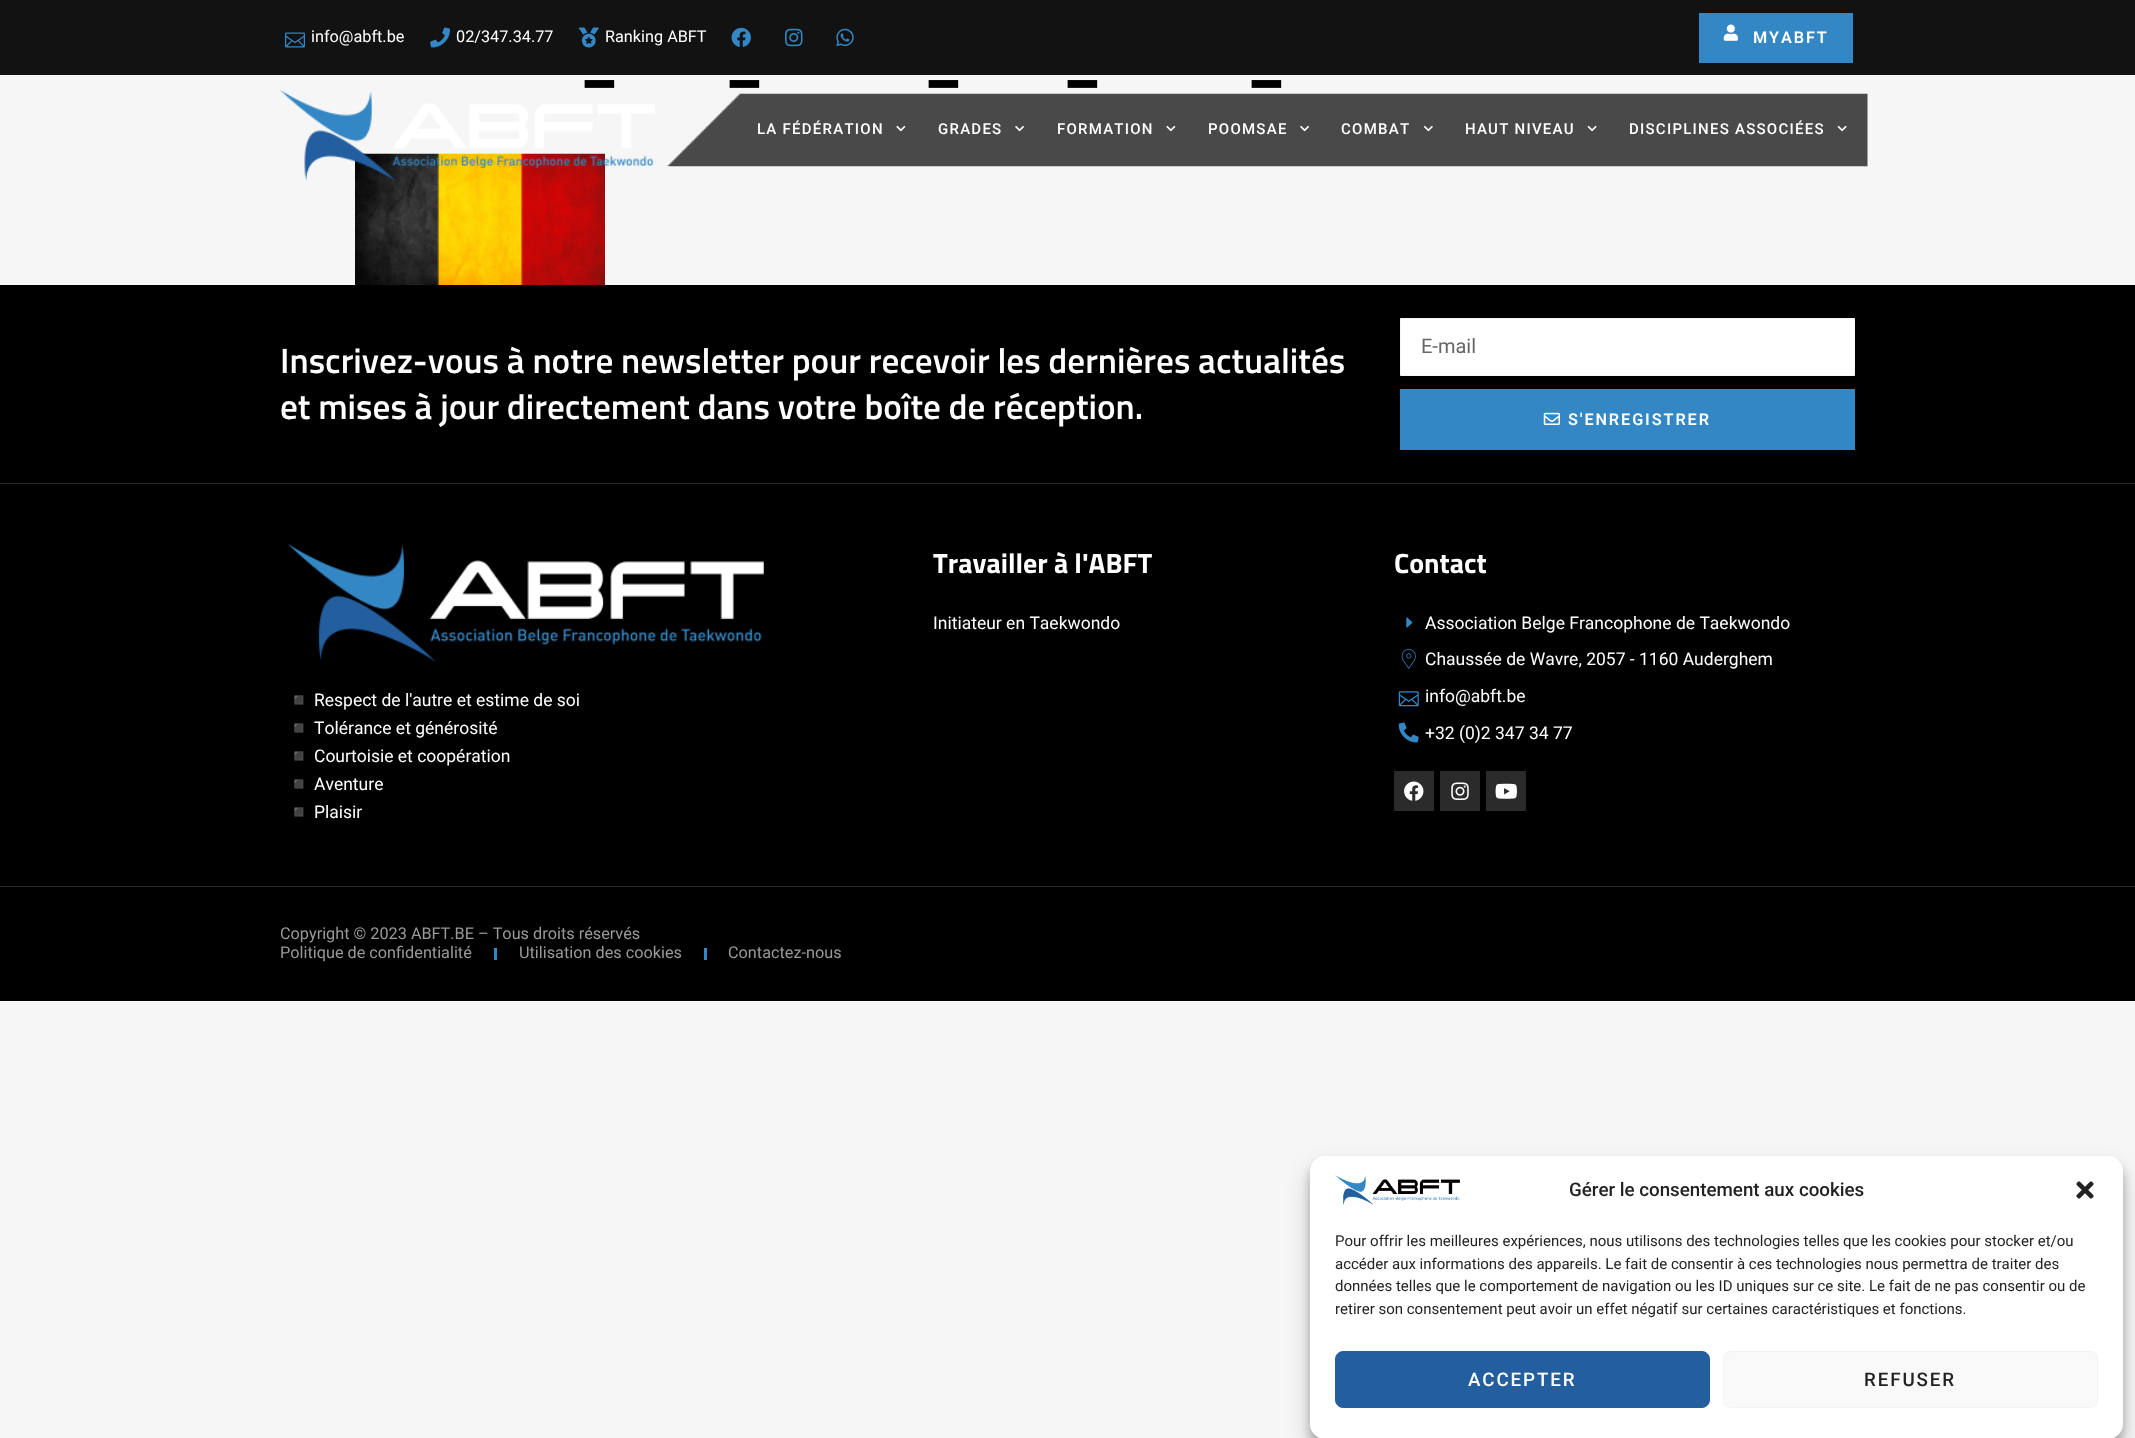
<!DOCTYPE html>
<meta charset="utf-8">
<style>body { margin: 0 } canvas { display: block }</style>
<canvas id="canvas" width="2135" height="1438"></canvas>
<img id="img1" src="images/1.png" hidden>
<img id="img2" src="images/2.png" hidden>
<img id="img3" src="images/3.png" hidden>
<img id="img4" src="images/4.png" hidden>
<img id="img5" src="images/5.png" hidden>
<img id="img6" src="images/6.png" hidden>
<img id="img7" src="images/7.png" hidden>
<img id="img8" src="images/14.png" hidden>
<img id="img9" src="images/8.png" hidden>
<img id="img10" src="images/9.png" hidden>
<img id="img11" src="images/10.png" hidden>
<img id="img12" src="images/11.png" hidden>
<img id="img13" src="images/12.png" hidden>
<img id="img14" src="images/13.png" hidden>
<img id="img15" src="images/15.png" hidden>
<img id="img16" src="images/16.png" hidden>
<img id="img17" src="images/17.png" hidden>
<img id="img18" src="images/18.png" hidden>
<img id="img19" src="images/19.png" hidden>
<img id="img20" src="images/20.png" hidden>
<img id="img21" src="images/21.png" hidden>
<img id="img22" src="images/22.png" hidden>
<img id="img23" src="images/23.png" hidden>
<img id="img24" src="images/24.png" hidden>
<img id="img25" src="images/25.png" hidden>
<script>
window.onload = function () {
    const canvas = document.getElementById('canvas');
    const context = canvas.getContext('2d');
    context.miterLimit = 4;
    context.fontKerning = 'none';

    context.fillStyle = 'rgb(246, 246, 246)';
    context.fillRect(0, 0, 2135, 1438);
    context.fillStyle = 'rgb(18, 18, 18)';
    context.fillRect(0, 0, 2135, 75);
    context.drawImage(document.getElementById('img1'), 285, 32, 20, 16);
    context.drawImage(document.getElementById('img2'), 430, 27, 20, 21);
    context.drawImage(document.getElementById('img3'), 578, 27, 21, 21);
    context.drawImage(document.getElementById('img4'), 731, 27, 20, 20);
    context.drawImage(document.getElementById('img5'), 785, 28, 18, 19);
    context.drawImage(document.getElementById('img6'), 836, 28, 18, 19);
    context.fillStyle = 'rgb(51, 135, 196)';
    context.fillRect(1699, 13, 154, 50);
    context.drawImage(document.getElementById('img7'), 1723, 24, 15, 17);
    context.drawImage(document.getElementById('img8'), 355, 153, 250, 132);
    context.drawImage(document.getElementById('img9'), 280, 90, 375, 92);
    context.drawImage(document.getElementById('img10'), 667, 93, 1201, 74);
    context.drawImage(document.getElementById('img11'), 896, 125, 10, 7);
    context.drawImage(document.getElementById('img12'), 1015, 125, 9, 7);
    context.drawImage(document.getElementById('img11'), 1166, 125, 10, 7);
    context.drawImage(document.getElementById('img12'), 1300, 125, 9, 7);
    context.drawImage(document.getElementById('img13'), 1423, 125, 10, 7);
    context.drawImage(document.getElementById('img14'), 1587, 125, 10, 7);
    context.drawImage(document.getElementById('img14'), 1837, 125, 10, 7);
    context.fillStyle = 'rgb(0, 0, 0)';
    context.fillRect(0, 285, 2135, 716);
    context.fillStyle = 'rgb(43, 43, 43)';
    context.fillRect(0, 483, 2135, 1);
    context.fillStyle = 'rgb(255, 255, 255)';
    context.beginPath();
    context.rect(1400.5, 318.5, 454, 57);
    context.fill();
    context.strokeStyle = 'rgb(246, 246, 246)';
    context.stroke();
    context.fillStyle = 'rgb(51, 135, 196)';
    context.fillRect(1400, 389, 455, 61);
    context.drawImage(document.getElementById('img15'), 1543, 412, 17, 13);
    context.fillStyle = 'rgb(43, 43, 43)';
    context.fillRect(0, 886, 2135, 1);
    context.drawImage(document.getElementById('img16'), 287, 543, 477, 119);
    context.drawImage(document.getElementById('img17'), 1406, 617, 7, 11);
    context.drawImage(document.getElementById('img18'), 1401, 649, 15, 20);
    context.drawImage(document.getElementById('img19'), 1398, 691, 21, 16);
    context.drawImage(document.getElementById('img20'), 1398, 722, 21, 21);
    context.fillRect(1394, 771, 40, 40);
    context.drawImage(document.getElementById('img21'), 1404, 781, 20, 20);
    context.fillRect(1440, 771, 40, 40);
    context.drawImage(document.getElementById('img22'), 1451, 782, 18, 18);
    context.fillRect(1486, 771, 40, 40);
    context.drawImage(document.getElementById('img23'), 1495, 783, 22, 16);
    context.fillStyle = 'rgb(51, 135, 196)';
    context.fillRect(494, 948, 3, 12);
    context.fillRect(704, 948, 3, 12);
    context.fillStyle = 'rgba(0, 0, 0, 0.23)';
    context.filter = 'blur(4px)';
    context.beginPath();
    context.roundRect(1310, 1164, 813, 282, 15);
    context.fill();
    context.filter = 'none';
    context.fillStyle = 'rgba(0, 0, 0, 0.19)';
    context.filter = 'blur(12.5px)';
    context.beginPath();
    context.roundRect(1310, 1169, 813, 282, 15);
    context.fill();
    context.filter = 'none';
    context.fillStyle = 'rgb(255, 255, 255)';
    context.beginPath();
    context.roundRect(1310, 1156, 813, 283, 15);
    context.fill();
    context.drawImage(document.getElementById('img24'), 1335, 1175, 125, 30);
    context.drawImage(document.getElementById('img25'), 2076, 1181, 18, 18);
    context.fillStyle = 'rgb(35, 94, 158)';
    context.beginPath();
    context.roundRect(1335.5, 1351.5, 374, 56, 7.5);
    context.fill();
    context.strokeStyle = 'rgb(35, 94, 158)';
    context.stroke();
    context.fillStyle = 'rgb(249, 249, 249)';
    context.beginPath();
    context.roundRect(1723.5, 1351.5, 374, 56, 7.5);
    context.fill();
    context.strokeStyle = 'rgb(242, 242, 242)';
    context.stroke();
    context.font = '16.25px Roboto';
    context.fillStyle = 'rgb(255, 255, 255)';
    context.fillText('info@abft.be', 311, 42);
    context.fillText('02/347.34.77', 456, 42);
    context.fillText('Ranking ABFT', 605, 42);
    context.letterSpacing = '1.9px';
    context.font = '600 16.25px Roboto';
    context.fillText('MYABFT', 1753, 43);
    context.letterSpacing = '1.25px';
    context.font = '500 15px Roboto';
    context.fillText('LA FÉDÉRATION', 757, 134);
    context.fillText('GRADES', 938, 134);
    context.fillText('FORMATION', 1057, 134);
    context.fillText('POOMSAE', 1208, 134);
    context.fillText('COMBAT', 1341, 134);
    context.fillText('HAUT NIVEAU', 1465, 134);
    context.fillText('DISCIPLINES ASSOCIÉES', 1629, 134);
    context.letterSpacing = '-2px';
    context.font = 'bold 69px Titillium Web';
    context.fillStyle = 'rgb(0, 0, 0)';
    context.fillText('_', 578, 75);
    context.fillText('_', 723, 75);
    context.fillText('_', 922, 75);
    context.fillText('_', 1061, 75);
    context.fillText('_', 1245, 75);
    context.letterSpacing = '0px';
    context.font = '600 35.15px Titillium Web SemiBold';
    context.fillStyle = 'rgb(255, 255, 255)';
    context.fillText('Inscrivez-vous à notre newsletter pour recevoir les dernières actualités', 280, 373);
    context.fillText('et mises à jour directement dans votre boîte de réception.', 280, 419);
    context.font = '20px Roboto';
    context.fillStyle = 'rgb(102, 102, 102)';
    context.fillText('E-mail', 1421, 353);
    context.letterSpacing = '1.9px';
    context.font = '600 16.25px Roboto';
    context.fillStyle = 'rgb(255, 255, 255)';
    context.fillText('S\'ENREGISTRER', 1568, 425);
    context.letterSpacing = '0px';
    context.font = '17.5px Noto Color Emoji';
    context.fillText('◾', 288, 706);
    context.font = '17.5px Roboto';
    context.fillText('Respect de l\'autre et estime de soi', 314, 706);
    context.font = '17.5px Noto Color Emoji';
    context.fillText('◾', 288, 734);
    context.font = '17.5px Roboto';
    context.fillText('Tolérance et générosité', 314, 734);
    context.font = '17.5px Noto Color Emoji';
    context.fillText('◾', 288, 762);
    context.font = '17.5px Roboto';
    context.fillText('Courtoisie et coopération', 314, 762);
    context.font = '17.5px Noto Color Emoji';
    context.fillText('◾', 288, 790);
    context.font = '17.5px Roboto';
    context.fillText('Aventure', 314, 790);
    context.font = '17.5px Noto Color Emoji';
    context.fillText('◾', 288, 818);
    context.font = '17.5px Roboto';
    context.fillText('Plaisir', 314, 818);
    context.font = 'bold 28px Titillium Web';
    context.fillText('Travailler à l\'ABFT', 933, 573);
    context.font = '17.5px Roboto';
    context.fillText('Initiateur en Taekwondo', 933, 629);
    context.font = 'bold 28px Titillium Web';
    context.fillText('Contact', 1394, 573);
    context.font = '17.5px Roboto';
    context.fillText('Association Belge Francophone de Taekwondo', 1425, 629);
    context.fillText('Chaussée de Wavre, 2057 - 1160 Auderghem', 1425, 665);
    context.fillText('info@abft.be', 1425, 702);
    context.fillText('+32 (0)2 347 34 77', 1425, 739);
    context.font = '16.25px Roboto';
    context.fillStyle = 'rgb(153, 153, 153)';
    context.fillText('Copyright © 2023 ABFT.BE – Tous droits réservés', 280, 939);
    context.fillText('Politique de confidentialité', 280, 958);
    context.fillText('Utilisation des cookies', 519, 958);
    context.fillText('Contactez-nous', 728, 958);
    context.font = '500 18.75px Roboto';
    context.fillStyle = 'rgb(34, 34, 34)';
    context.fillText('Gérer le consentement aux cookies', 1569, 1196);
    context.font = '15px Roboto';
    context.fillText('Pour offrir les meilleures expériences, nous utilisons des technologies telles que les cookies pour stocker et/ou', 1335, 1246);
    context.fillText('accéder aux informations des appareils. Le fait de consentir à ces technologies nous permettra de traiter des', 1335, 1269);
    context.fillText('données telles que le comportement de navigation ou les ID uniques sur ce site. Le fait de ne pas consentir ou de', 1335, 1291);
    context.fillText('retirer son consentement peut avoir un effet négatif sur certaines caractéristiques et fonctions.', 1335, 1314);
    context.letterSpacing = '1.9px';
    context.font = '500 18.75px Roboto';
    context.fillStyle = 'rgb(255, 255, 255)';
    context.fillText('ACCEPTER', 1468, 1386);
    context.fillStyle = 'rgb(34, 34, 34)';
    context.fillText('REFUSER', 1864, 1386);
};
</script>
